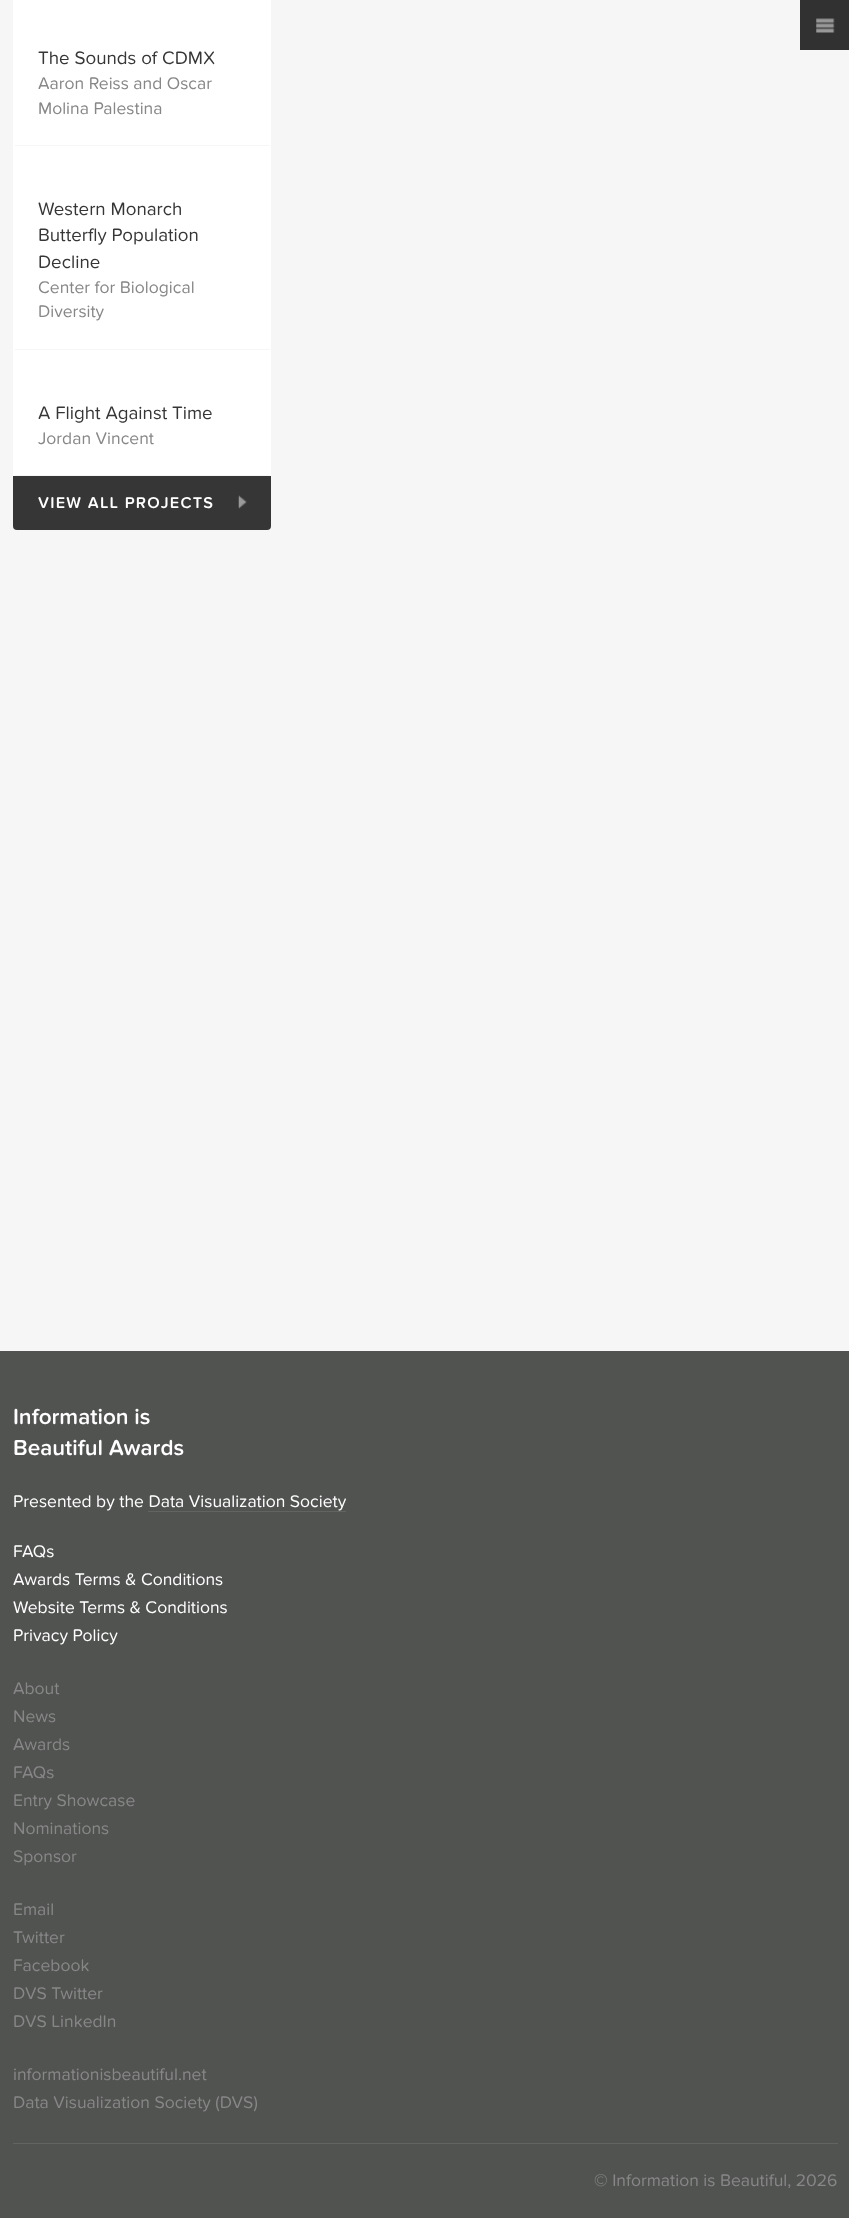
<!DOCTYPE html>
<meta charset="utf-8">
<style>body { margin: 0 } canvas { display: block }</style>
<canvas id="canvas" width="849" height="2218"></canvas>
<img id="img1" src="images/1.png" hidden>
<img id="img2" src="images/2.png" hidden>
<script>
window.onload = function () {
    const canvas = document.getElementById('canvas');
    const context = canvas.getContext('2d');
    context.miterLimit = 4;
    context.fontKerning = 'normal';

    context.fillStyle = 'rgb(246, 246, 246)';
    context.fillRect(0, 0, 849, 2218);
    context.fillStyle = 'rgb(49, 49, 49)';
    context.fillRect(800, 0, 49, 50);
    context.drawImage(document.getElementById('img1'), 816, 18, 19, 15);
    context.fillStyle = 'rgb(255, 255, 255)';
    context.beginPath();
    context.roundRect(13, -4, 258, 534, 4);
    context.fill();
    context.fillStyle = 'rgb(246, 246, 246)';
    context.fillRect(15, 145, 255, 1);
    context.fillRect(15, 349, 255, 1);
    context.fillRect(15, 475, 255, 1);
    context.fillStyle = 'rgb(53, 54, 53)';
    context.beginPath();
    context.roundRect(13, 476, 258, 54, [0, 0, 4, 4]);
    context.fill();
    context.drawImage(document.getElementById('img2'), 238, 495, 9, 14);
    context.fillStyle = 'rgb(81, 83, 81)';
    context.fillRect(0, 1351, 849, 867);
    context.fillStyle = 'rgb(98, 100, 98)';
    context.fillRect(148, 1511, 198, 1);
    context.fillRect(13, 2143, 825, 1);
    context.font = '18.75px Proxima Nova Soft';
    context.fillStyle = 'rgb(53, 54, 53)';
    context.fillText('The Sounds of CDMX', 38, 64);
    context.font = '17.5px Proxima Nova Soft';
    context.fillStyle = 'rgb(135, 135, 135)';
    context.fillText('Aaron Reiss and Oscar', 38, 89);
    context.fillText('Molina Palestina', 38, 114);
    context.font = '18.75px Proxima Nova Soft';
    context.fillStyle = 'rgb(53, 54, 53)';
    context.fillText('Western Monarch', 38, 215);
    context.fillText('Butterfly Population', 38, 241);
    context.fillText('Decline', 38, 268);
    context.font = '17.5px Proxima Nova Soft';
    context.fillStyle = 'rgb(135, 135, 135)';
    context.fillText('Center for Biological', 38, 293);
    context.fillText('Diversity', 38, 317);
    context.font = '18.75px Proxima Nova Soft';
    context.fillStyle = 'rgb(53, 54, 53)';
    context.fillText('A Flight Against Time', 38, 419);
    context.font = '17.5px Proxima Nova Soft';
    context.fillStyle = 'rgb(135, 135, 135)';
    context.fillText('Jordan Vincent', 38, 444);
    context.letterSpacing = '1.25px';
    context.font = '600 16.25px Proxima Nova Soft';
    context.fillStyle = 'rgb(255, 255, 255)';
    context.fillText('VIEW ALL PROJECTS', 38, 508);
    context.letterSpacing = '0px';
    context.font = '600 22.5px Proxima Nova Soft';
    context.fillText('Information is', 13, 1424);
    context.fillText('Beautiful Awards', 13, 1455);
    context.font = '17.5px Proxima Nova Soft';
    context.fillText('Presented by the Data Visualization Society', 13, 1507);
    context.fillText('FAQs', 13, 1557);
    context.fillText('Awards Terms & Conditions', 13, 1585);
    context.fillText('Website Terms & Conditions', 13, 1613);
    context.fillText('Privacy Policy', 13, 1641);
    context.fillStyle = 'rgb(135, 135, 135)';
    context.fillText('About', 13, 1694);
    context.fillText('News', 13, 1722);
    context.fillText('Awards', 13, 1750);
    context.fillText('FAQs', 13, 1778);
    context.fillText('Entry Showcase', 13, 1806);
    context.fillText('Nominations', 13, 1834);
    context.fillText('Sponsor', 13, 1862);
    context.fillText('Email', 13, 1915);
    context.fillText('Twitter', 13, 1943);
    context.fillText('Facebook', 13, 1971);
    context.fillText('DVS Twitter', 13, 1999);
    context.fillText('DVS LinkedIn', 13, 2027);
    context.fillText('informationisbeautiful.net', 13, 2080);
    context.fillText('Data Visualization Society (DVS)', 13, 2108);
    context.fillText('© Information is Beautiful, 2026', 594, 2186);
};
</script>
